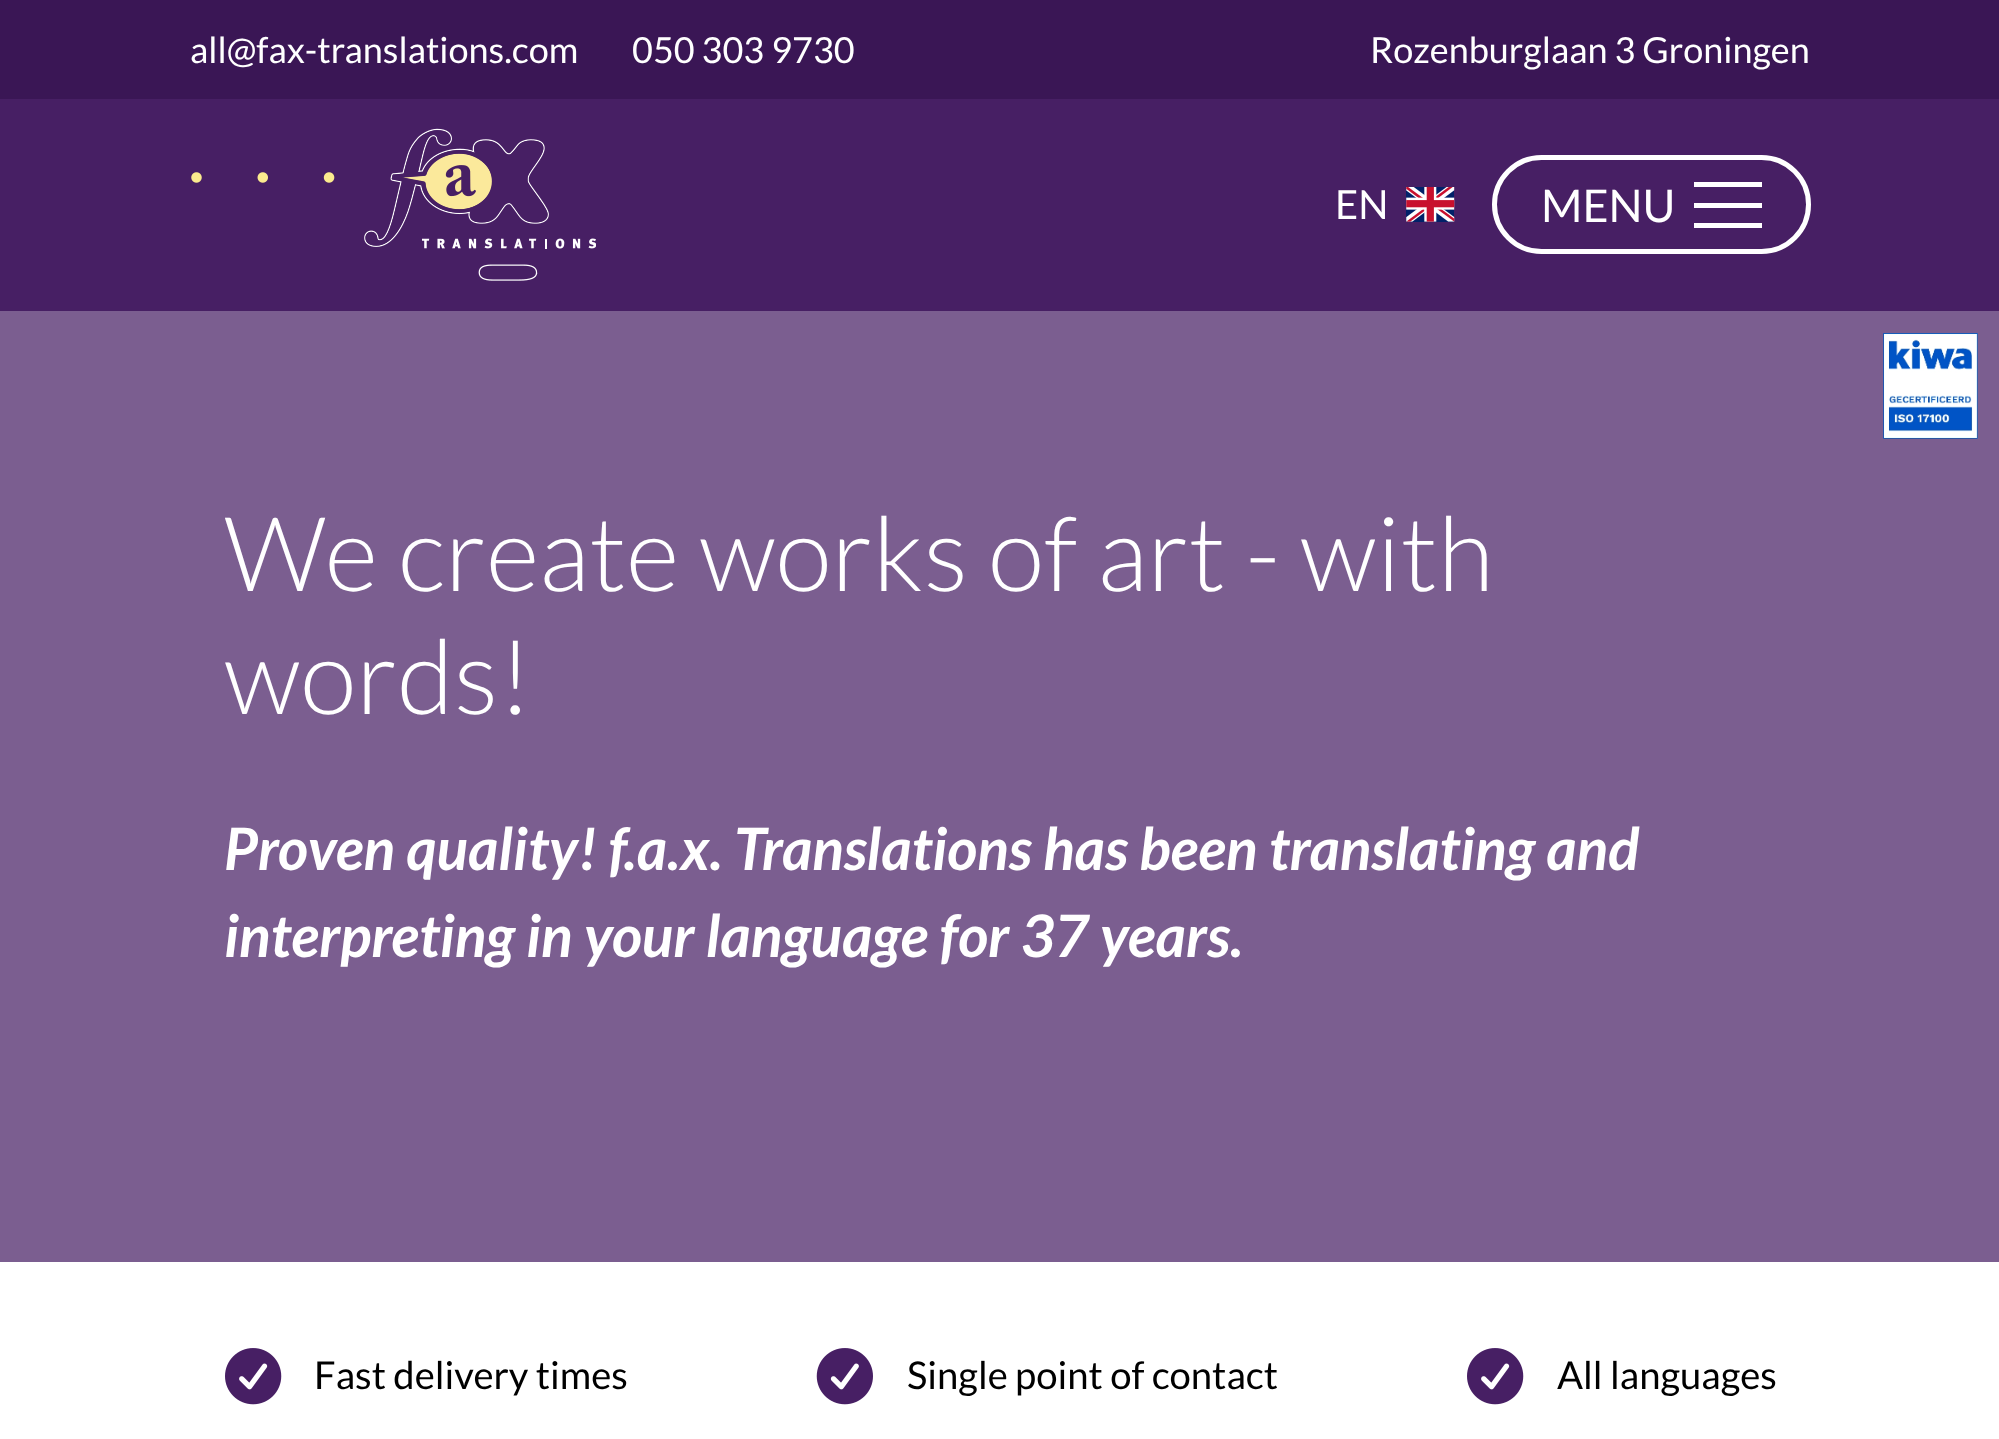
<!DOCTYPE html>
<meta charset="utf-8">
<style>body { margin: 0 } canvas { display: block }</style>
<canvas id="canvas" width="1999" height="1439"></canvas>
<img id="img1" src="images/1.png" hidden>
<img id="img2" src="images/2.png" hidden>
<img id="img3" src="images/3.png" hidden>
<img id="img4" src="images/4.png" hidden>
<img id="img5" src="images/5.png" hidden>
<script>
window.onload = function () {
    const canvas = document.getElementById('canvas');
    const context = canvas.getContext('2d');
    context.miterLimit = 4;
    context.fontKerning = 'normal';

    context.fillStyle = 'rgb(255, 255, 255)';
    context.fillRect(0, 0, 1999, 1439);
    context.fillStyle = 'rgb(58, 22, 85)';
    context.fillRect(0, 0, 1999, 99);
    context.fillStyle = 'rgb(71, 31, 100)';
    context.fillRect(0, 99, 1999, 212);
    context.drawImage(document.getElementById('img1'), 191, 128, 405, 153);
    context.drawImage(document.getElementById('img2'), 1406, 187, 49, 35);
    context.beginPath();
    context.roundRect(1494.5, 157.5, 314, 94, 47);
    context.strokeStyle = 'rgb(255, 255, 255)';
    context.lineWidth = 5;
    context.stroke();
    context.fillStyle = 'rgb(255, 255, 255)';
    context.fillRect(1694, 182, 68, 5);
    context.fillRect(1694, 203, 68, 5);
    context.fillRect(1694, 223, 68, 5);
    context.fillStyle = 'rgb(123, 94, 144)';
    context.fillRect(0, 311, 1999, 951);
    context.drawImage(document.getElementById('img3'), 1883, 333, 95, 106);
    context.drawImage(document.getElementById('img4'), 225, 1348, 57, 57);
    context.drawImage(document.getElementById('img5'), 816, 1348, 57, 57);
    context.drawImage(document.getElementById('img4'), 1467, 1348, 57, 57);
    context.font = '36px Lato';
    context.fillStyle = 'rgb(255, 255, 255)';
    context.fillText('all@fax-translations.com', 190, 63);
    context.fillText('050 303 9730', 632, 63);
    context.fillText('Rozenburglaan 3 Groningen', 1370, 63);
    context.font = '40px Lato';
    context.fillText('EN', 1335, 219);
    context.font = '45px Lato';
    context.fillText('MENU', 1541, 222);
    context.font = '300 103.5px Lato';
    context.fillText('We create works of art - with', 224, 591);
    context.fillText('words!', 224, 714);
    context.font = 'italic bold 58.5px Lato';
    context.fillText('Proven quality! f.a.x. Translations has been translating and', 224, 870);
    context.fillText('interpreting in your language for 37 years.', 224, 957);
    context.font = '38.25px Lato';
    context.fillStyle = 'rgb(0, 0, 0)';
    context.fillText('Fast delivery times', 314, 1389);
    context.fillText('Single point of contact', 907, 1389);
    context.fillText('All languages', 1557, 1389);
};
</script>
